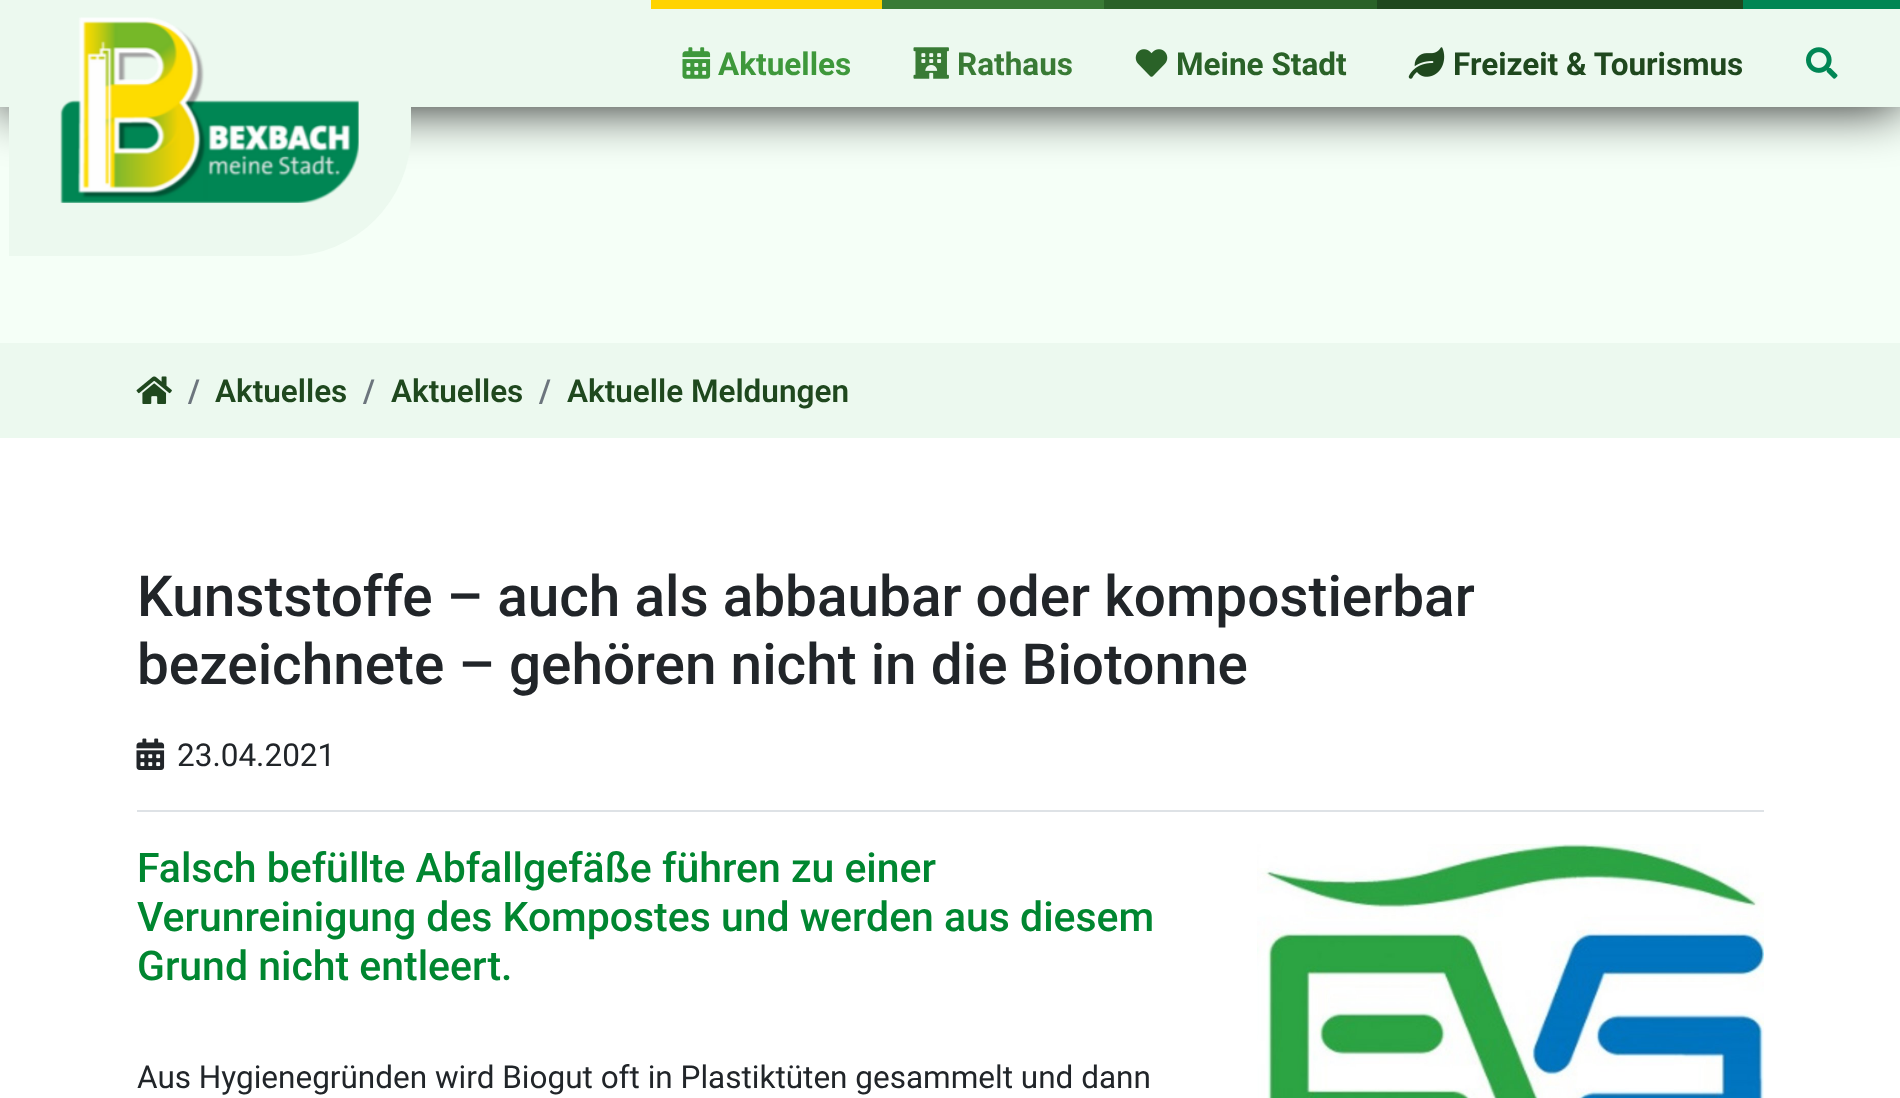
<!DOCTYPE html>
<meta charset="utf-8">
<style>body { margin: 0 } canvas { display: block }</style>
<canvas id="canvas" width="1900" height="1098"></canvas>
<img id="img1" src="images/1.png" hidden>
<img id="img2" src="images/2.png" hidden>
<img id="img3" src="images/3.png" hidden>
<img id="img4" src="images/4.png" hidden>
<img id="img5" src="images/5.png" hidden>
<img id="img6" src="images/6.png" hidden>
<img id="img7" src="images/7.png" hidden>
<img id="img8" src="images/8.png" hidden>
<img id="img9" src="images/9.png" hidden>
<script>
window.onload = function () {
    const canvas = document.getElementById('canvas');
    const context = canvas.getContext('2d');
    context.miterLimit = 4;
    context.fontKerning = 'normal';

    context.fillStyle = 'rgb(255, 255, 255)';
    context.fillRect(0, 0, 1900, 1098);
    context.fillStyle = 'rgb(245, 255, 247)';
    context.fillRect(0, 107, 1900, 236);
    context.fillStyle = 'rgba(0, 0, 0, 0.9)';
    context.filter = 'blur(26px)';
    context.beginPath();
    context.rect(0, 0, 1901, 107);
    context.fill();
    context.filter = 'none';
    context.fillStyle = 'rgb(236, 249, 239)';
    context.fillRect(0, 0, 1900, 107);
    context.beginPath();
    context.roundRect(9, 0, 402, 256, [0, 0, 123, 0]);
    context.fill();
    context.drawImage(document.getElementById('img1'), 60, 17, 299, 186);
    context.fillStyle = 'rgb(0, 134, 84)';
    context.fillRect(1743, 0, 157, 9);
    context.fillStyle = 'rgb(255, 211, 0)';
    context.fillRect(651, 0, 231, 9);
    context.drawImage(document.getElementById('img2'), 682, 47, 29, 32);
    context.fillStyle = 'rgb(57, 123, 53)';
    context.fillRect(882, 0, 222, 9);
    context.drawImage(document.getElementById('img3'), 913, 47, 36, 32);
    context.fillStyle = 'rgb(42, 98, 40)';
    context.fillRect(1104, 0, 273, 9);
    context.drawImage(document.getElementById('img4'), 1135, 49, 33, 28);
    context.fillStyle = 'rgb(31, 72, 30)';
    context.fillRect(1377, 0, 366, 9);
    context.drawImage(document.getElementById('img5'), 1408, 47, 37, 32);
    context.drawImage(document.getElementById('img6'), 1806, 47, 32, 32);
    context.fillStyle = 'rgb(236, 249, 239)';
    context.fillRect(0, 343, 1900, 95);
    context.drawImage(document.getElementById('img7'), 136, 376, 36, 28);
    context.fillStyle = 'rgb(222, 226, 230)';
    context.fillRect(137, 810, 1627, 2);
    context.drawImage(document.getElementById('img8'), 136, 738, 29, 32);
    context.drawImage(document.getElementById('img9'), 1257, 844, 507, 254);
    context.font = 'bold 31.5px Roboto';
    context.fillStyle = 'rgb(62, 152, 59)';
    context.fillText('Aktuelles', 718, 75);
    context.fillStyle = 'rgb(57, 123, 53)';
    context.fillText('Rathaus', 957, 75);
    context.fillStyle = 'rgb(42, 98, 40)';
    context.fillText('Meine Stadt', 1176, 75);
    context.fillStyle = 'rgb(31, 72, 30)';
    context.fillText('Freizeit & Tourismus', 1453, 75);
    context.font = '600 31.5px Roboto';
    context.fillStyle = 'rgb(108, 117, 125)';
    context.fillText('/', 188, 402);
    context.fillStyle = 'rgb(31, 72, 30)';
    context.fillText('Aktuelles', 215, 402);
    context.fillStyle = 'rgb(108, 117, 125)';
    context.fillText('/', 363, 402);
    context.fillStyle = 'rgb(31, 72, 30)';
    context.fillText('Aktuelles', 391, 402);
    context.fillStyle = 'rgb(108, 117, 125)';
    context.fillText('/', 539, 402);
    context.fillStyle = 'rgb(31, 72, 30)';
    context.fillText('Aktuelle Meldungen', 567, 402);
    context.font = '500 56.7px Roboto';
    context.fillStyle = 'rgb(33, 37, 41)';
    context.fillText('Kunststoffe – auch als abbaubar oder kompostierbar', 137, 616);
    context.fillText('bezeichnete – gehören nicht in die Biotonne', 137, 684);
    context.font = '31.5px Roboto';
    context.fillText('23.04.2021', 177, 766);
    context.font = '500 40.95px Roboto';
    context.fillStyle = 'rgb(0, 134, 48)';
    context.fillText('Falsch befüllte Abfallgefäße führen zu einer', 137, 882);
    context.fillText('Verunreinigung des Kompostes und werden aus diesem', 137, 931);
    context.fillText('Grund nicht entleert.', 137, 980);
    context.font = '31.5px Roboto';
    context.fillStyle = 'rgb(33, 37, 41)';
    context.fillText('Aus Hygienegründen wird Biogut oft in Plastiktüten gesammelt und dann', 137, 1088);
};
</script>
